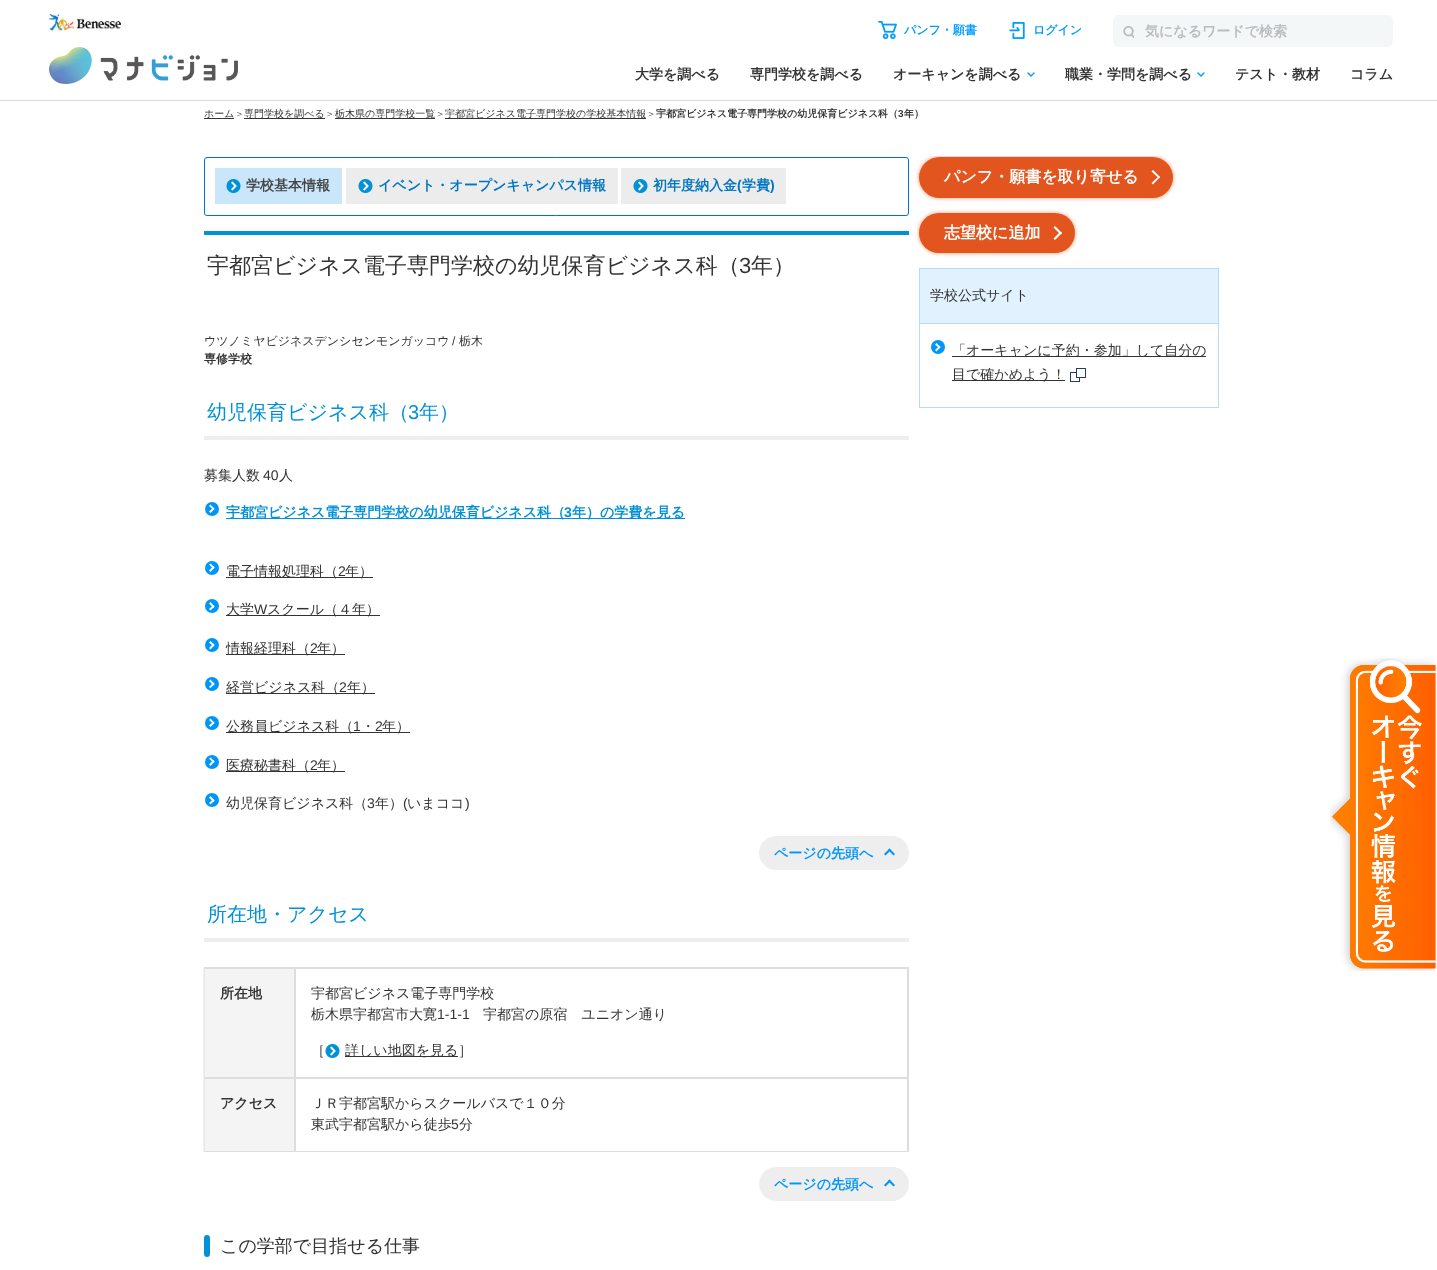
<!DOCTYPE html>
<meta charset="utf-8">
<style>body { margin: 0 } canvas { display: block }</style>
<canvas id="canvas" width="1437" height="1270"></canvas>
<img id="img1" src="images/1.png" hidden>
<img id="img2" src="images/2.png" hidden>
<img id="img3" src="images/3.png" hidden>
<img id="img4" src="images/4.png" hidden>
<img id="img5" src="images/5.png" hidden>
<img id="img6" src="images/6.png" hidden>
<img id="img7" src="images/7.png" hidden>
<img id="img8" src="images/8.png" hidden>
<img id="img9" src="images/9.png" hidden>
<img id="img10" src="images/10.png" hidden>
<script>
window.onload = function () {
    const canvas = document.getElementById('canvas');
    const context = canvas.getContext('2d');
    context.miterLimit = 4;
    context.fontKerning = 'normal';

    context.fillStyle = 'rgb(255, 255, 255)';
    context.fillRect(0, 0, 1437, 1270);
    context.fillStyle = 'rgb(214, 219, 226)';
    context.fillRect(0, 100, 1437, 1);
    context.drawImage(document.getElementById('img1'), 49, 14, 72, 17);
    context.drawImage(document.getElementById('img2'), 49, 47, 189, 37);
    context.drawImage(document.getElementById('img3'), 878, 20, 19, 20);
    context.drawImage(document.getElementById('img4'), 1009, 22, 16, 17);
    context.fillStyle = 'rgb(244, 247, 247)';
    context.beginPath();
    context.roundRect(1113, 15, 280, 32, 6);
    context.fill();
    context.drawImage(document.getElementById('img5'), 1123, 26, 11, 12);
    context.beginPath();
    context.moveTo(1034, 73);
    context.lineTo(1031, 76);
    context.lineTo(1028, 73);
    context.strokeStyle = 'rgb(0, 157, 255)';
    context.lineWidth = 1.4;
    context.lineCap = 'round';
    context.stroke();
    context.beginPath();
    context.moveTo(1204, 73);
    context.lineTo(1201, 76);
    context.lineTo(1198, 73);
    context.stroke();
    context.fillStyle = 'rgb(51, 51, 51)';
    context.fillRect(204, 118, 30, 1);
    context.fillRect(244, 118, 81, 1);
    context.fillRect(335, 118, 100, 1);
    context.fillRect(445, 118, 201, 1);
    context.beginPath();
    context.roundRect(204.5, 157.5, 704, 58, 2.5);
    context.strokeStyle = 'rgb(0, 117, 193)';
    context.lineWidth = 1;
    context.stroke();
    context.fillStyle = 'rgb(202, 230, 251)';
    context.fillRect(215, 168, 127, 36);
    context.drawImage(document.getElementById('img6'), 226, 179, 15, 14);
    context.fillStyle = 'rgb(236, 236, 236)';
    context.fillRect(346, 168, 272, 36);
    context.drawImage(document.getElementById('img7'), 358, 179, 15, 14);
    context.fillRect(621, 168, 165, 36);
    context.drawImage(document.getElementById('img7'), 633, 179, 15, 14);
    context.fillStyle = 'rgb(0, 145, 215)';
    context.fillRect(204, 231, 705, 4);
    context.fillStyle = 'rgb(238, 238, 238)';
    context.fillRect(204, 436, 705, 4);
    context.fillStyle = 'rgb(0, 149, 248)';
    context.beginPath();
    context.arc(212, 509, 7, 0, 2 * Math.PI);
    context.fill();
    context.fillStyle = 'rgb(255, 255, 255)';
    context.beginPath();
    context.moveTo(210.5, 504.5);
    context.lineTo(214.5, 509);
    context.lineTo(213.5, 510);
    context.lineTo(209, 506);
    context.closePath();
    context.fill();
    context.beginPath();
    context.moveTo(213.5, 507.5);
    context.lineTo(214.5, 509);
    context.lineTo(210.5, 513);
    context.lineTo(209, 511.5);
    context.closePath();
    context.fill();
    context.fillStyle = 'rgb(2, 145, 215)';
    context.fillRect(226, 518, 459, 1);
    context.fillStyle = 'rgb(0, 149, 248)';
    context.beginPath();
    context.arc(212, 568, 7, 0, 2 * Math.PI);
    context.fill();
    context.fillStyle = 'rgb(255, 255, 255)';
    context.beginPath();
    context.moveTo(210.5, 563.5);
    context.lineTo(214.5, 567.5);
    context.lineTo(213.5, 569);
    context.lineTo(209, 564.5);
    context.closePath();
    context.fill();
    context.beginPath();
    context.moveTo(213.5, 566);
    context.lineTo(214.5, 567.5);
    context.lineTo(210.5, 572);
    context.lineTo(209, 570.5);
    context.closePath();
    context.fill();
    context.fillStyle = 'rgb(51, 51, 51)';
    context.fillRect(226, 577, 147, 1);
    context.fillStyle = 'rgb(0, 149, 248)';
    context.beginPath();
    context.arc(212, 606, 7, 0, 2 * Math.PI);
    context.fill();
    context.fillStyle = 'rgb(255, 255, 255)';
    context.beginPath();
    context.moveTo(210.5, 602);
    context.lineTo(214.5, 606.5);
    context.lineTo(213.5, 608);
    context.lineTo(209, 603.5);
    context.closePath();
    context.fill();
    context.beginPath();
    context.moveTo(213.5, 605);
    context.lineTo(214.5, 606.5);
    context.lineTo(210.5, 610.5);
    context.lineTo(209, 609);
    context.closePath();
    context.fill();
    context.fillStyle = 'rgb(51, 51, 51)';
    context.fillRect(226, 615, 154, 1);
    context.fillStyle = 'rgb(0, 149, 248)';
    context.beginPath();
    context.arc(212, 645, 7, 0, 2 * Math.PI);
    context.fill();
    context.fillStyle = 'rgb(255, 255, 255)';
    context.beginPath();
    context.moveTo(210.5, 641);
    context.lineTo(214.5, 645);
    context.lineTo(213.5, 646.5);
    context.lineTo(209, 642.5);
    context.closePath();
    context.fill();
    context.beginPath();
    context.moveTo(213.5, 643.5);
    context.lineTo(214.5, 645);
    context.lineTo(210.5, 649.5);
    context.lineTo(209, 648);
    context.closePath();
    context.fill();
    context.fillStyle = 'rgb(51, 51, 51)';
    context.fillRect(226, 654, 119, 1);
    context.fillStyle = 'rgb(0, 149, 248)';
    context.beginPath();
    context.arc(212, 684, 7, 0, 2 * Math.PI);
    context.fill();
    context.fillStyle = 'rgb(255, 255, 255)';
    context.beginPath();
    context.moveTo(210.5, 679.5);
    context.lineTo(214.5, 684);
    context.lineTo(213.5, 685.5);
    context.lineTo(209, 681);
    context.closePath();
    context.fill();
    context.beginPath();
    context.moveTo(213.5, 682.5);
    context.lineTo(214.5, 684);
    context.lineTo(210.5, 688);
    context.lineTo(209, 687);
    context.closePath();
    context.fill();
    context.fillStyle = 'rgb(51, 51, 51)';
    context.fillRect(226, 693, 149, 1);
    context.fillStyle = 'rgb(0, 149, 248)';
    context.beginPath();
    context.arc(212, 723, 7, 0, 2 * Math.PI);
    context.fill();
    context.fillStyle = 'rgb(255, 255, 255)';
    context.beginPath();
    context.moveTo(210.5, 718.5);
    context.lineTo(214.5, 723);
    context.lineTo(213.5, 724);
    context.lineTo(209, 720);
    context.closePath();
    context.fill();
    context.beginPath();
    context.moveTo(213.5, 721.5);
    context.lineTo(214.5, 723);
    context.lineTo(210.5, 727);
    context.lineTo(209, 725.5);
    context.closePath();
    context.fill();
    context.fillStyle = 'rgb(51, 51, 51)';
    context.fillRect(226, 732, 184, 1);
    context.fillStyle = 'rgb(0, 149, 248)';
    context.beginPath();
    context.arc(212, 762, 7, 0, 2 * Math.PI);
    context.fill();
    context.fillStyle = 'rgb(255, 255, 255)';
    context.beginPath();
    context.moveTo(210.5, 757.5);
    context.lineTo(214.5, 761.5);
    context.lineTo(213.5, 763);
    context.lineTo(209, 758.5);
    context.closePath();
    context.fill();
    context.beginPath();
    context.moveTo(213.5, 760);
    context.lineTo(214.5, 761.5);
    context.lineTo(210.5, 766);
    context.lineTo(209, 764.5);
    context.closePath();
    context.fill();
    context.fillStyle = 'rgb(51, 51, 51)';
    context.fillRect(226, 771, 119, 1);
    context.fillStyle = 'rgb(0, 149, 248)';
    context.beginPath();
    context.arc(212, 800, 7, 0, 2 * Math.PI);
    context.fill();
    context.fillStyle = 'rgb(255, 255, 255)';
    context.beginPath();
    context.moveTo(210.5, 796);
    context.lineTo(214.5, 800.5);
    context.lineTo(213.5, 802);
    context.lineTo(209, 797.5);
    context.closePath();
    context.fill();
    context.beginPath();
    context.moveTo(213.5, 799);
    context.lineTo(214.5, 800.5);
    context.lineTo(210.5, 804.5);
    context.lineTo(209, 803);
    context.closePath();
    context.fill();
    context.fillStyle = 'rgb(238, 238, 238)';
    context.beginPath();
    context.roundRect(759, 836, 150, 34, 17);
    context.fill();
    context.fillStyle = 'rgb(0, 149, 248)';
    context.beginPath();
    context.moveTo(889.5, 848.5);
    context.lineTo(895, 854);
    context.lineTo(893.5, 855.5);
    context.lineTo(888, 850);
    context.closePath();
    context.fill();
    context.beginPath();
    context.moveTo(889.5, 848.5);
    context.lineTo(891, 850);
    context.lineTo(885.5, 855.5);
    context.lineTo(884, 854);
    context.closePath();
    context.fill();
    context.fillStyle = 'rgb(238, 238, 238)';
    context.fillRect(204, 938, 705, 4);
    context.fillStyle = 'rgb(244, 244, 244)';
    context.beginPath();
    context.rect(204.5, 968.5, 90, 109);
    context.fill();
    context.strokeStyle = 'rgb(221, 221, 221)';
    context.stroke();
    context.strokeRect(295.5, 968.5, 612, 109);
    context.fillStyle = 'rgb(221, 221, 221)';
    context.fillRect(204, 967, 705, 1);
    context.fillRect(908, 1077, 1, 75);
    context.fillRect(908, 967, 1, 111);
    context.drawImage(document.getElementById('img8'), 325, 1044, 15, 14);
    context.fillStyle = 'rgb(51, 51, 51)';
    context.fillRect(345, 1056, 113, 1);
    context.fillStyle = 'rgb(244, 244, 244)';
    context.beginPath();
    context.rect(204.5, 1078.5, 90, 73);
    context.fill();
    context.stroke();
    context.strokeRect(295.5, 1078.5, 612, 73);
    context.fillStyle = 'rgb(238, 238, 238)';
    context.beginPath();
    context.roundRect(759, 1167, 150, 34, 17);
    context.fill();
    context.fillStyle = 'rgb(0, 149, 248)';
    context.beginPath();
    context.moveTo(889.5, 1179.5);
    context.lineTo(895, 1185);
    context.lineTo(893.5, 1186.5);
    context.lineTo(888, 1181);
    context.closePath();
    context.fill();
    context.beginPath();
    context.moveTo(889.5, 1179.5);
    context.lineTo(891, 1181);
    context.lineTo(885.5, 1186.5);
    context.lineTo(884, 1185);
    context.closePath();
    context.fill();
    context.fillStyle = 'rgb(2, 145, 215)';
    context.beginPath();
    context.roundRect(204, 1235, 6, 22, 3);
    context.fill();
    context.save();
    context.beginPath();
    context.rect(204, 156, 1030, 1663);
    context.clip();
    context.fillStyle = 'rgb(255, 147, 105)';
    context.filter = 'blur(2px)';
    context.beginPath();
    context.roundRect(919, 157, 254, 41, 20.5);
    context.fill();
    context.filter = 'none';
    context.restore();
    context.fillStyle = 'rgb(226, 85, 30)';
    context.beginPath();
    context.roundRect(919, 157, 254, 41, 20.5);
    context.fill();
    context.fillStyle = 'rgb(255, 255, 255)';
    context.beginPath();
    context.moveTo(1153, 170);
    context.lineTo(1160, 177);
    context.lineTo(1159, 178.5);
    context.lineTo(1151.5, 171.5);
    context.closePath();
    context.fill();
    context.beginPath();
    context.moveTo(1159, 176);
    context.lineTo(1160, 177);
    context.lineTo(1153, 184.5);
    context.lineTo(1151.5, 183);
    context.closePath();
    context.fill();
    context.fillStyle = 'rgb(255, 147, 105)';
    context.filter = 'blur(2px)';
    context.beginPath();
    context.roundRect(919, 213, 156, 40, 20);
    context.fill();
    context.filter = 'none';
    context.fillStyle = 'rgb(226, 85, 30)';
    context.beginPath();
    context.roundRect(919, 213, 156, 40, 20);
    context.fill();
    context.fillStyle = 'rgb(255, 255, 255)';
    context.beginPath();
    context.moveTo(1055, 226);
    context.lineTo(1062, 233);
    context.lineTo(1060.5, 234.5);
    context.lineTo(1053.5, 227.5);
    context.closePath();
    context.fill();
    context.beginPath();
    context.moveTo(1060.5, 231.5);
    context.lineTo(1062, 233);
    context.lineTo(1055, 240);
    context.lineTo(1053.5, 238.5);
    context.closePath();
    context.fill();
    context.fillStyle = 'rgb(180, 219, 249)';
    context.fillRect(1218, 268, 1, 140);
    context.fillRect(919, 407, 300, 1);
    context.fillRect(919, 268, 1, 140);
    context.fillStyle = 'rgb(225, 241, 253)';
    context.fillRect(920, 269, 298, 54);
    context.fillStyle = 'rgb(180, 219, 249)';
    context.fillRect(920, 268, 298, 1);
    context.fillRect(920, 323, 298, 1);
    context.fillStyle = 'rgb(0, 149, 248)';
    context.beginPath();
    context.arc(938, 347, 7, 0, 2 * Math.PI);
    context.fill();
    context.fillStyle = 'rgb(255, 255, 255)';
    context.beginPath();
    context.moveTo(936.5, 343);
    context.lineTo(940.5, 347);
    context.lineTo(939.5, 348.5);
    context.lineTo(935, 344.5);
    context.closePath();
    context.fill();
    context.beginPath();
    context.moveTo(939.5, 346);
    context.lineTo(940.5, 347);
    context.lineTo(936.5, 351.5);
    context.lineTo(935, 350);
    context.closePath();
    context.fill();
    context.fillStyle = 'rgb(51, 51, 51)';
    context.fillRect(952, 356, 254, 1);
    context.fillRect(952, 380, 113, 1);
    context.drawImage(document.getElementById('img9'), 1070, 368, 16, 14);
    context.drawImage(document.getElementById('img10'), 1330, 658, 107, 313);
    context.font = 'bold 12px WenQuanYi Zen Hei';
    context.fillStyle = 'rgb(0, 157, 255)';
    context.fillText('パンフ・願書', 904, 34);
    context.fillText('ログイン', 1033, 34);
    context.font = 'bold 14px WenQuanYi Zen Hei';
    context.fillStyle = 'rgb(185, 188, 191)';
    context.fillText('気になるワードで検索', 1145, 36);
    context.fillStyle = 'rgb(51, 51, 51)';
    context.fillText('大学を調べる', 635, 79);
    context.fillText('専門学校を調べる', 750, 79);
    context.fillText('オーキャンを調べる', 893, 79);
    context.fillText('職業・学問を調べる', 1065, 79);
    context.fillText('テスト・教材', 1235, 79);
    context.fillText('コラム', 1350, 79);
    context.font = '500 10px WenQuanYi Zen Hei';
    context.fillText('ホーム＞', 204, 117);
    context.fillText('専門学校を調べる＞', 244, 117);
    context.fillText('栃木県の専門学校一覧＞', 335, 117);
    context.fillText('宇都宮ビジネス電子専門学校の学校基本情報＞', 445, 117);
    context.font = 'bold 10px WenQuanYi Zen Hei';
    context.fillText('宇都宮ビジネス電子専門学校の幼児保育ビジネス科（', 656, 117);
    context.font = 'bold 10px Liberation Sans';
    context.fillText('3', 898, 117);
    context.font = 'bold 10px WenQuanYi Zen Hei';
    context.fillText('年）', 904, 117);
    context.font = 'bold 14px WenQuanYi Zen Hei';
    context.fillStyle = 'rgb(68, 68, 68)';
    context.fillText('学校基本情報', 246, 190);
    context.fillStyle = 'rgb(0, 117, 193)';
    context.fillText('イベント・オープンキャンパス情報', 378, 190);
    context.fillText('初年度納入金', 653, 190);
    context.font = 'bold 14px Liberation Sans';
    context.fillText('(', 737, 190);
    context.font = 'bold 14px WenQuanYi Zen Hei';
    context.fillText('学費', 742, 190);
    context.font = 'bold 14px Liberation Sans';
    context.fillText(')', 770, 190);
    context.font = '500 22px WenQuanYi Zen Hei';
    context.fillStyle = 'rgb(51, 51, 51)';
    context.fillText('宇都宮ビジネス電子専門学校の幼児保育ビジネス科（', 207, 273);
    context.font = '22px Liberation Sans';
    context.fillText('3', 739, 273);
    context.font = '500 22px WenQuanYi Zen Hei';
    context.fillText('年）', 751, 273);
    context.font = '500 12px WenQuanYi Zen Hei';
    context.fillText('ウツノミヤビジネスデンシセンモンガッコウ', 204, 345);
    context.font = '12px Liberation Sans';
    context.fillText('/', 452, 345);
    context.font = '500 12px WenQuanYi Zen Hei';
    context.fillText('栃木', 459, 345);
    context.font = 'bold 12px WenQuanYi Zen Hei';
    context.fillText('専修学校', 204, 363);
    context.font = '500 20px WenQuanYi Zen Hei';
    context.fillStyle = 'rgb(2, 145, 215)';
    context.fillText('幼児保育ビジネス科（', 207, 419);
    context.font = '20px Liberation Sans';
    context.fillText('3', 408, 419);
    context.font = '500 20px WenQuanYi Zen Hei';
    context.fillText('年）', 419, 419);
    context.font = '500 14px WenQuanYi Zen Hei';
    context.fillStyle = 'rgb(51, 51, 51)';
    context.fillText('募集人数', 204, 480);
    context.font = '14px Liberation Sans';
    context.fillText('40', 263, 480);
    context.font = '500 14px WenQuanYi Zen Hei';
    context.fillText('人', 279, 480);
    context.font = 'bold 14px WenQuanYi Zen Hei';
    context.fillStyle = 'rgb(2, 145, 215)';
    context.fillText('宇都宮ビジネス電子専門学校の幼児保育ビジネス科（', 226, 517);
    context.font = 'bold 14px Liberation Sans';
    context.fillText('3', 564, 517);
    context.font = 'bold 14px WenQuanYi Zen Hei';
    context.fillText('年）の学費を見る', 572, 517);
    context.font = '500 14px WenQuanYi Zen Hei';
    context.fillStyle = 'rgb(51, 51, 51)';
    context.fillText('電子情報処理科（', 226, 576);
    context.font = '14px Liberation Sans';
    context.fillText('2', 338, 576);
    context.font = '500 14px WenQuanYi Zen Hei';
    context.fillText('年）', 345, 576);
    context.fillText('大学', 226, 614);
    context.font = '14px Liberation Sans';
    context.fillText('W', 254, 614);
    context.font = '500 14px WenQuanYi Zen Hei';
    context.fillText('スクール（４年）', 267, 614);
    context.fillText('情報経理科（', 226, 653);
    context.font = '14px Liberation Sans';
    context.fillText('2', 310, 653);
    context.font = '500 14px WenQuanYi Zen Hei';
    context.fillText('年）', 317, 653);
    context.fillText('経営ビジネス科（', 226, 692);
    context.font = '14px Liberation Sans';
    context.fillText('2', 339, 692);
    context.font = '500 14px WenQuanYi Zen Hei';
    context.fillText('年）', 347, 692);
    context.fillText('公務員ビジネス科（', 226, 731);
    context.font = '14px Liberation Sans';
    context.fillText('1', 353, 731);
    context.font = '500 14px WenQuanYi Zen Hei';
    context.fillText('・', 361, 731);
    context.font = '14px Liberation Sans';
    context.fillText('2', 375, 731);
    context.font = '500 14px WenQuanYi Zen Hei';
    context.fillText('年）', 382, 731);
    context.fillText('医療秘書科（', 226, 770);
    context.font = '14px Liberation Sans';
    context.fillText('2', 310, 770);
    context.font = '500 14px WenQuanYi Zen Hei';
    context.fillText('年）', 317, 770);
    context.fillText('幼児保育ビジネス科（', 226, 808);
    context.font = '14px Liberation Sans';
    context.fillText('3', 367, 808);
    context.font = '500 14px WenQuanYi Zen Hei';
    context.fillText('年）', 375, 808);
    context.font = '14px Liberation Sans';
    context.fillText('(', 403, 808);
    context.font = '500 14px WenQuanYi Zen Hei';
    context.fillText('いまココ', 407, 808);
    context.font = '14px Liberation Sans';
    context.fillText(')', 465, 808);
    context.font = 'bold 14px WenQuanYi Zen Hei';
    context.fillStyle = 'rgb(0, 149, 248)';
    context.fillText('ページの先頭へ', 774, 858);
    context.font = '500 20px WenQuanYi Zen Hei';
    context.fillStyle = 'rgb(2, 145, 215)';
    context.fillText('所在地・アクセス', 207, 921);
    context.font = 'bold 14px WenQuanYi Zen Hei';
    context.fillStyle = 'rgb(51, 51, 51)';
    context.fillText('所在地', 220, 998);
    context.font = '500 14px WenQuanYi Zen Hei';
    context.fillText('宇都宮ビジネス電子専門学校', 311, 998);
    context.fillText('栃木県宇都宮市大寛', 311, 1019);
    context.font = '14px Liberation Sans';
    context.fillText('1-1-1', 437, 1019);
    context.font = '500 14px WenQuanYi Zen Hei';
    context.fillText('宇都宮の原宿　ユニオン通り', 483, 1019);
    context.fillText('［', 311, 1055);
    context.fillText('詳しい地図を見る］', 345, 1055);
    context.font = 'bold 14px WenQuanYi Zen Hei';
    context.fillText('アクセス', 220, 1108);
    context.font = '500 14px WenQuanYi Zen Hei';
    context.fillText('ＪＲ宇都宮駅からスクールバスで１０分', 311, 1108);
    context.fillText('東武宇都宮駅から徒歩', 311, 1129);
    context.font = '14px Liberation Sans';
    context.fillText('5', 451, 1129);
    context.font = '500 14px WenQuanYi Zen Hei';
    context.fillText('分', 459, 1129);
    context.font = 'bold 14px WenQuanYi Zen Hei';
    context.fillStyle = 'rgb(0, 149, 248)';
    context.fillText('ページの先頭へ', 774, 1189);
    context.font = '500 18px WenQuanYi Zen Hei';
    context.fillStyle = 'rgb(51, 51, 51)';
    context.fillText('この学部で目指せる仕事', 220, 1252);
    context.font = 'bold 16px WenQuanYi Zen Hei';
    context.fillStyle = 'rgb(255, 255, 255)';
    context.fillText('パンフ・願書を取り寄せる', 944, 182);
    context.fillText('志望校に追加', 944, 238);
    context.font = '500 14px WenQuanYi Zen Hei';
    context.fillStyle = 'rgb(51, 51, 51)';
    context.fillText('学校公式サイト', 930, 300);
    context.fillText('「オーキャンに予約・参加」して自分の', 952, 355);
    context.fillText('目で確かめよう！', 952, 379);
};
</script>
